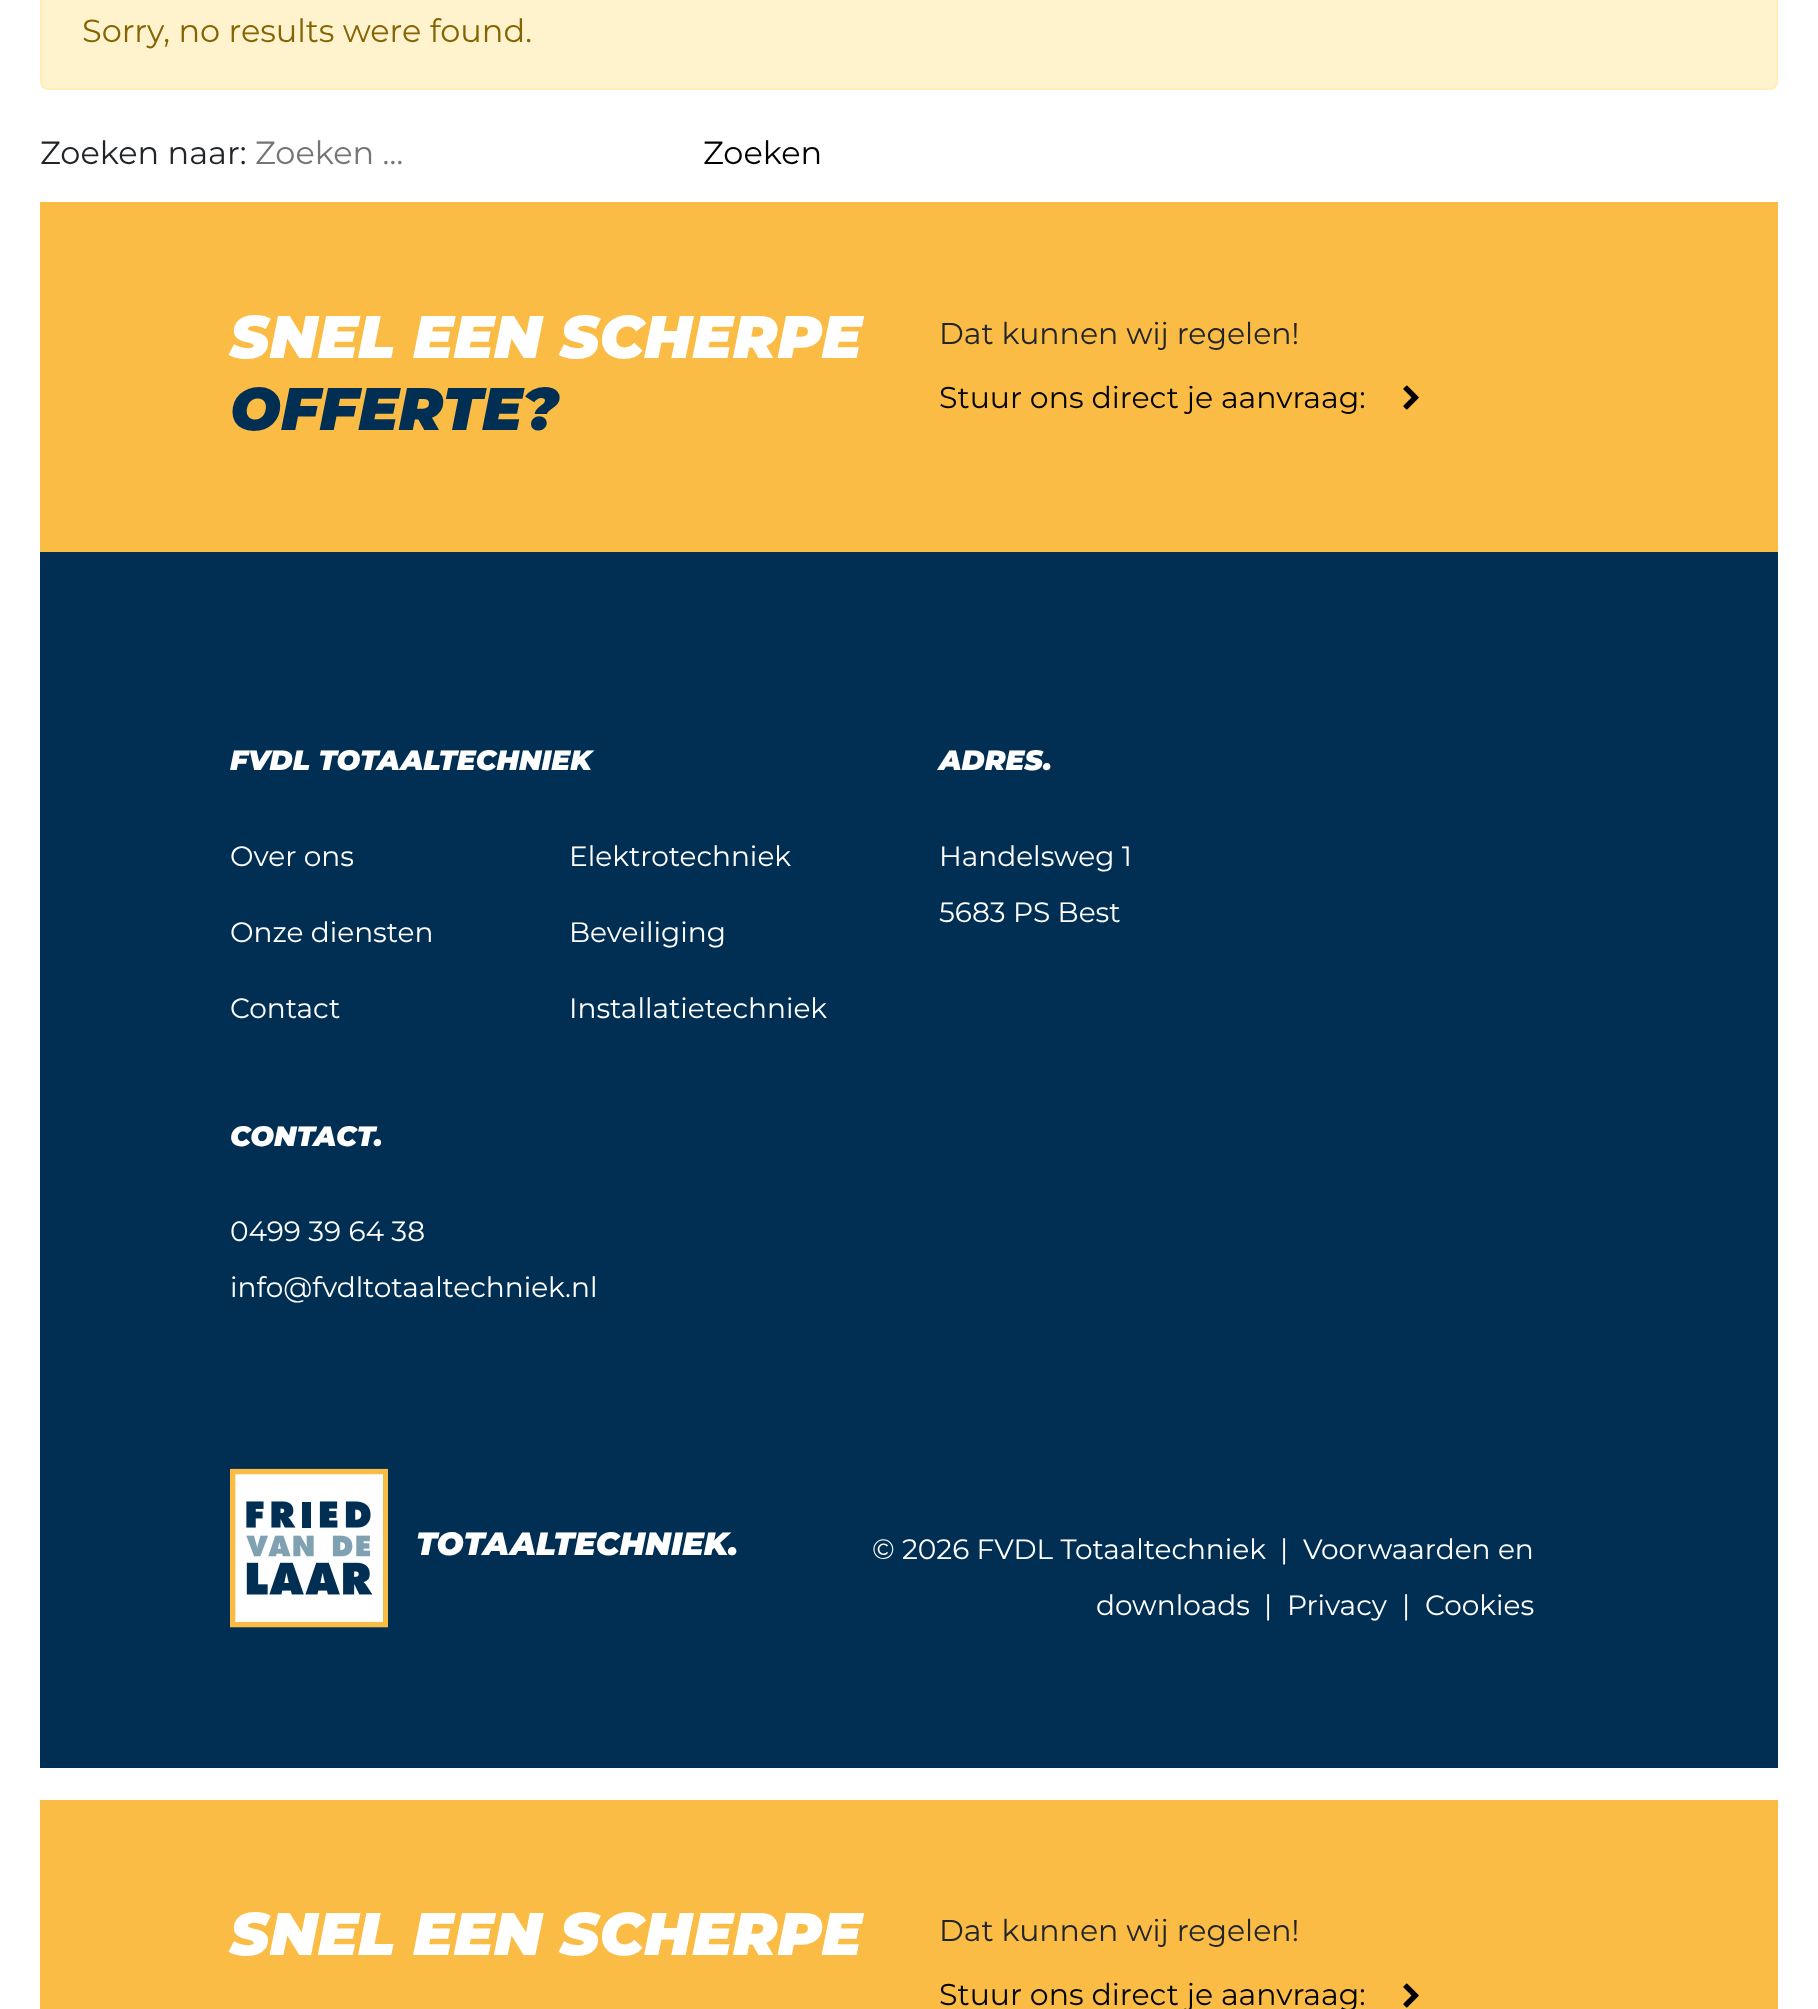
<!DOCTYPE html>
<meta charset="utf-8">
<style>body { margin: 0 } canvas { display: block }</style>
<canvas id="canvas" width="1818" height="2009"></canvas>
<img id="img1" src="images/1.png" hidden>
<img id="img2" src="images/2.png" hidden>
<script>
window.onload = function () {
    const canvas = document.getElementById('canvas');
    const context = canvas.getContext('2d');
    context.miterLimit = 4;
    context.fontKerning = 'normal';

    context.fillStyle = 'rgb(255, 255, 255)';
    context.fillRect(0, 0, 1818, 2009);
    context.fillStyle = 'rgb(255, 243, 205)';
    context.beginPath();
    context.roundRect(41, -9, 1736, 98, 7);
    context.fill();
    context.strokeStyle = 'rgb(255, 238, 186)';
    context.lineWidth = 2;
    context.stroke();
    context.fillStyle = 'rgb(251, 188, 70)';
    context.fillRect(40, 202, 1738, 350);
    context.drawImage(document.getElementById('img1'), 1403, 385, 16, 25);
    context.fillStyle = 'rgb(0, 47, 83)';
    context.fillRect(40, 552, 1738, 1216);
    context.drawImage(document.getElementById('img2'), 230, 1468, 158, 160);
    context.fillStyle = 'rgb(251, 188, 70)';
    context.fillRect(40, 1800, 1738, 209);
    context.drawImage(document.getElementById('img1'), 1403, 1983, 16, 25);
    context.font = '32px Montserrat';
    context.fillStyle = 'rgb(133, 100, 4)';
    context.fillText('Sorry, no results were found.', 82, 42);
    context.fillStyle = 'rgb(33, 37, 41)';
    context.fillText('Zoeken naar:', 40, 164);
    context.fillStyle = 'rgb(117, 117, 117)';
    context.fillText('Zoeken …', 255, 164);
    context.fillStyle = 'rgb(0, 0, 0)';
    context.fillText('Zoeken', 703, 164);
    context.font = 'italic 900 60px Montserrat';
    context.fillStyle = 'rgb(255, 255, 255)';
    context.fillText('SNEL EEN SCHERPE', 230, 358);
    context.fillStyle = 'rgb(0, 47, 83)';
    context.fillText('OFFERTE?', 230, 430);
    context.font = '30px Montserrat';
    context.fillStyle = 'rgb(33, 37, 41)';
    context.fillText('Dat kunnen wij regelen!', 939, 344);
    context.fillStyle = 'rgb(0, 0, 0)';
    context.fillText('Stuur ons direct je aanvraag:', 939, 408);
    context.font = 'italic 900 28px Montserrat';
    context.fillStyle = 'rgb(255, 255, 255)';
    context.fillText('FVDL TOTAALTECHNIEK', 230, 770);
    context.font = '28px Montserrat';
    context.fillText('Over ons', 230, 866);
    context.fillText('Elektrotechniek', 569, 866);
    context.fillText('Onze diensten', 230, 942);
    context.fillText('Beveiliging', 569, 942);
    context.fillText('Contact', 230, 1018);
    context.fillText('Installatietechniek', 569, 1018);
    context.font = 'italic 900 28px Montserrat';
    context.fillText('ADRES.', 939, 770);
    context.font = '28px Montserrat';
    context.fillText('Handelsweg 1', 939, 866);
    context.fillText('5683 PS Best', 939, 922);
    context.font = 'italic 900 28px Montserrat';
    context.fillText('CONTACT.', 230, 1146);
    context.font = '28px Montserrat';
    context.fillText('0499 39 64 38', 230, 1241);
    context.fillText('info@fvdltotaaltechniek.nl', 230, 1297);
    context.font = 'italic 900 32px Montserrat';
    context.fillText('TOTAALTECHNIEK.', 416, 1555);
    context.font = '28px Montserrat';
    context.fillText('© 2026 FVDL Totaaltechniek', 872, 1559);
    context.fillText('|', 1280, 1559);
    context.fillText('Voorwaarden en', 1303, 1559);
    context.fillText('downloads', 1096, 1615);
    context.fillText('|', 1264, 1615);
    context.fillText('Privacy', 1287, 1615);
    context.fillText('|', 1402, 1615);
    context.fillText('Cookies', 1425, 1615);
    context.font = 'italic 900 60px Montserrat';
    context.fillText('SNEL EEN SCHERPE', 230, 1955);
    context.font = '30px Montserrat';
    context.fillStyle = 'rgb(33, 37, 41)';
    context.fillText('Dat kunnen wij regelen!', 939, 1941);
    context.fillStyle = 'rgb(0, 0, 0)';
    context.fillText('Stuur ons direct je aanvraag:', 939, 2005);
};
</script>
